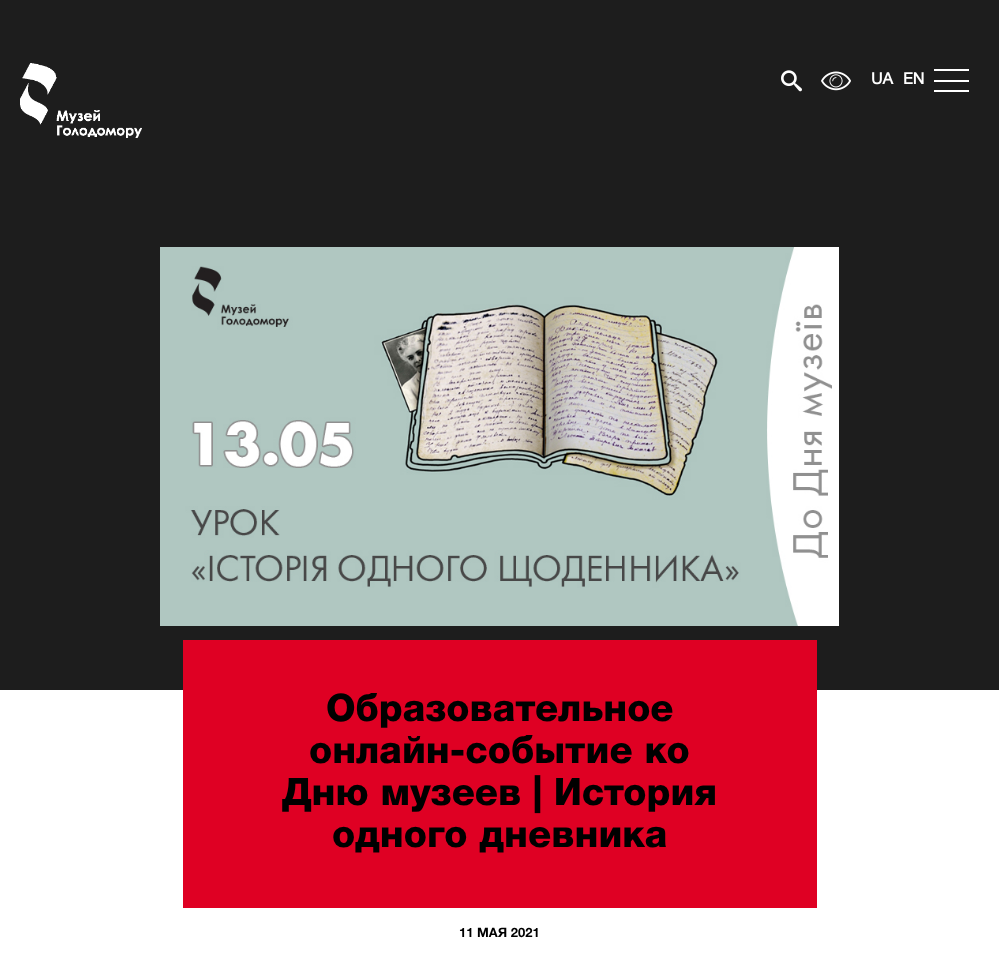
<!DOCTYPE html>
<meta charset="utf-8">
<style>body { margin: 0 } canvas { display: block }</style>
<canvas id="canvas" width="999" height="955"></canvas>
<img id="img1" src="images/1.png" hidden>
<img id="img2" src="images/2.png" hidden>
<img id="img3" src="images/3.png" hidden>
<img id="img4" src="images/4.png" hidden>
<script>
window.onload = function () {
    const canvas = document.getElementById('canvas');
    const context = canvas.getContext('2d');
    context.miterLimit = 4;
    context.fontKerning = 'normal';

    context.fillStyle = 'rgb(29, 29, 29)';
    context.fillRect(0, 0, 999, 955);
    context.drawImage(document.getElementById('img1'), 20, 63, 122, 75);
    context.drawImage(document.getElementById('img2'), 781, 70, 21, 22);
    context.drawImage(document.getElementById('img3'), 821, 71, 30, 20);
    context.fillStyle = 'rgb(255, 255, 255)';
    context.fillRect(934, 69, 35, 2);
    context.fillRect(934, 80, 35, 2);
    context.fillRect(934, 90, 35, 2);
    context.fillRect(0, 690, 999, 265);
    context.drawImage(document.getElementById('img4'), 160, 247, 679, 379);
    context.fillStyle = 'rgb(223, 0, 35)';
    context.fillRect(183, 640, 634, 268);
    context.font = 'bold 16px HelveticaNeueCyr';
    context.fillStyle = 'rgb(255, 255, 255)';
    context.fillText('UA', 871, 84);
    context.fillText('EN', 903, 84);
    context.font = '900 38px HelveticaNeueCyr';
    context.fillStyle = 'rgb(0, 0, 0)';
    context.fillText('Образовательное', 326, 721);
    context.fillText('онлайн-событие ко', 309, 763);
    context.fillText('Дню музеев | История', 282, 805);
    context.fillText('одного дневника', 332, 847);
    context.font = 'bold 13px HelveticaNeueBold';
    context.fillText('11 МАЯ 2021', 459, 937);
};
</script>
